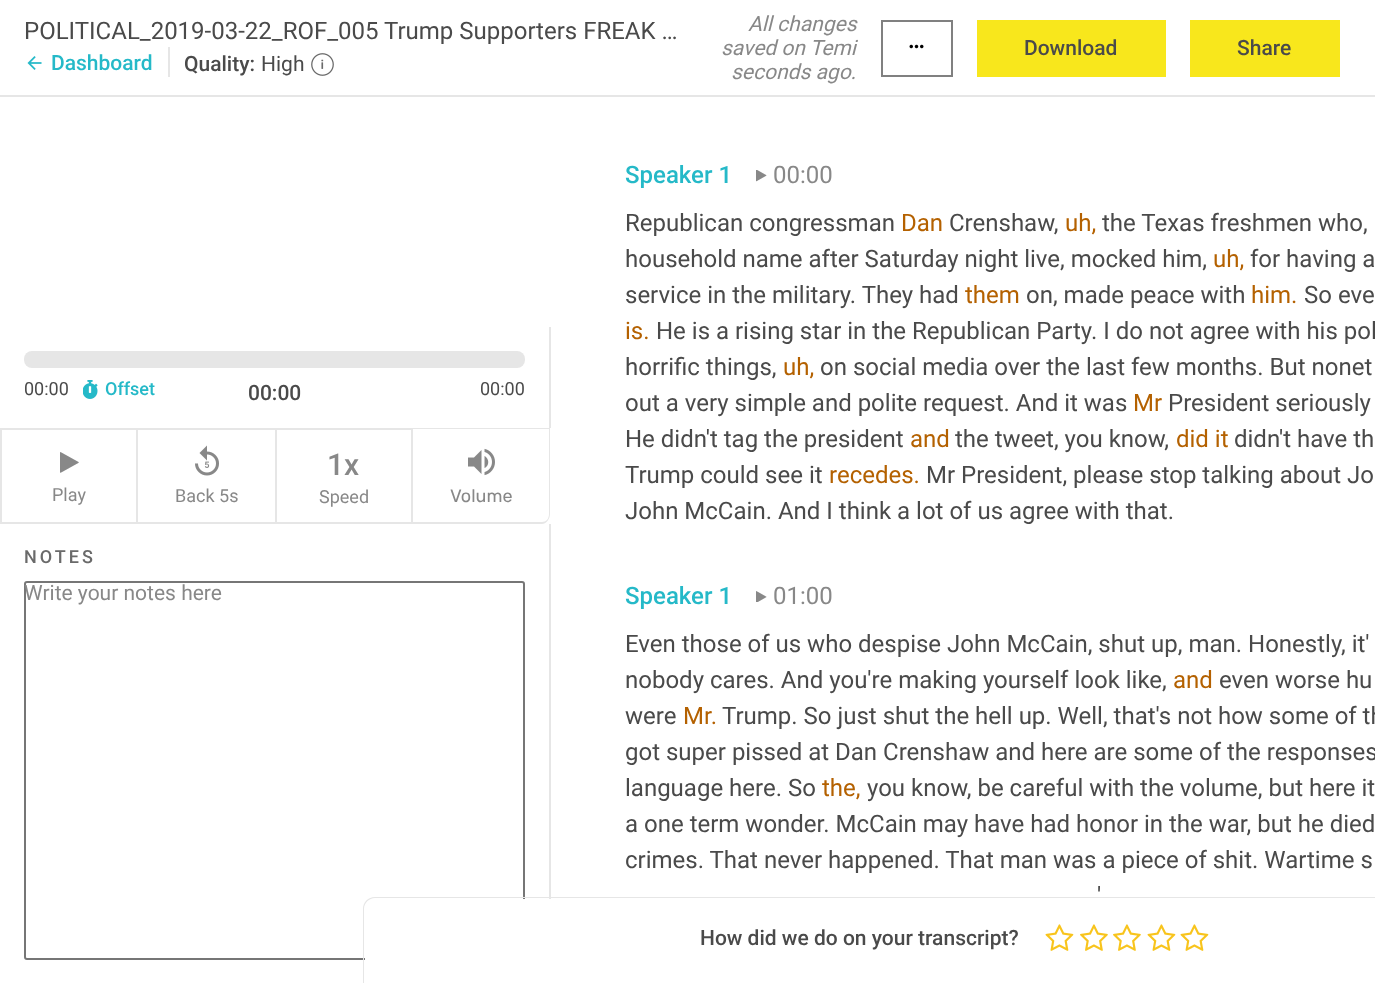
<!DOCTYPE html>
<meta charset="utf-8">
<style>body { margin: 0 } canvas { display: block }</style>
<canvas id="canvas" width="1375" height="983"></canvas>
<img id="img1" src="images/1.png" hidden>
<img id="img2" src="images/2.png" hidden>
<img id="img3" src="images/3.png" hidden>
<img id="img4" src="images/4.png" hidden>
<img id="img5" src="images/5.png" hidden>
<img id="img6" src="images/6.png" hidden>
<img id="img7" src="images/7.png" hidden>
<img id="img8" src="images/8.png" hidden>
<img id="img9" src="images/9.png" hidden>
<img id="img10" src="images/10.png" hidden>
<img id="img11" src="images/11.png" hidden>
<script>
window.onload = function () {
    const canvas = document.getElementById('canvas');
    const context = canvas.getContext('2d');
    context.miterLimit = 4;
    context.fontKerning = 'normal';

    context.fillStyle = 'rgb(255, 255, 255)';
    context.fillRect(0, 0, 1375, 983);
    context.fillStyle = 'rgb(230, 230, 230)';
    context.fillRect(0, 95, 1375, 2);
    context.drawImage(document.getElementById('img1'), 27, 56, 15, 14);
    context.fillRect(168, 47, 2, 30);
    context.drawImage(document.getElementById('img2'), 311, 53, 23, 23);
    context.strokeStyle = 'rgb(128, 128, 128)';
    context.lineWidth = 2;
    context.strokeRect(882, 21, 70, 55);
    context.drawImage(document.getElementById('img3'), 909, 44, 15, 5);
    context.fillStyle = 'rgb(248, 231, 28)';
    context.fillRect(977, 20, 189, 57);
    context.fillRect(1190, 20, 150, 57);
    context.fillStyle = 'rgb(230, 230, 230)';
    context.fillRect(549, 327, 2, 101);
    context.beginPath();
    context.roundRect(24, 351, 501, 17, 8);
    context.fill();
    context.drawImage(document.getElementById('img4'), 83, 380, 15, 19);
    context.strokeStyle = 'rgb(230, 230, 230)';
    context.strokeRect(1, 429, 136, 94);
    context.drawImage(document.getElementById('img5'), 60, 452, 19, 21);
    context.fillRect(138, 428, 138, 2);
    context.fillRect(275, 428, 2, 96);
    context.fillRect(138, 522, 138, 2);
    context.drawImage(document.getElementById('img6'), 195, 445, 24, 31);
    context.fillRect(276, 428, 137, 2);
    context.fillRect(411, 428, 2, 96);
    context.fillRect(276, 522, 137, 2);
    context.beginPath();
    context.moveTo(412, 428);
    context.lineTo(550, 428);
    context.lineTo(550, 514);
    context.bezierCurveTo(550, 519, 546, 524, 542, 524);
    context.lineTo(412, 524);
    context.closePath();
    context.moveTo(412, 429);
    context.lineTo(549, 429);
    context.lineTo(549, 514);
    context.bezierCurveTo(549, 519, 546, 522, 542, 522);
    context.lineTo(412, 522);
    context.closePath();
    context.fill('evenodd');
    context.drawImage(document.getElementById('img7'), 468, 448, 27, 28);
    context.fillRect(549, 524, 2, 375);
    context.beginPath();
    context.roundRect(25, 582, 499, 377, 2);
    context.strokeStyle = 'rgb(118, 118, 118)';
    context.stroke();
    context.drawImage(document.getElementById('img8'), 756, 170, 11, 12);
    context.drawImage(document.getElementById('img9'), 756, 591, 11, 11);
    context.fillStyle = 'rgb(255, 255, 255)';
    context.beginPath();
    context.moveTo(376, 899);
    context.lineTo(1375, 899);
    context.bezierCurveTo(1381, 899, 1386, 904, 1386, 910);
    context.lineTo(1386, 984);
    context.lineTo(365, 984);
    context.lineTo(365, 910);
    context.bezierCurveTo(365, 904, 370, 899, 376, 899);
    context.closePath();
    context.fill();
    context.fillStyle = 'rgb(230, 230, 230)';
    context.beginPath();
    context.moveTo(375, 897);
    context.lineTo(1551, 897);
    context.bezierCurveTo(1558, 897, 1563, 902, 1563, 909);
    context.lineTo(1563, 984);
    context.lineTo(363, 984);
    context.lineTo(363, 909);
    context.bezierCurveTo(363, 902, 368, 897, 375, 897);
    context.closePath();
    context.moveTo(375, 898);
    context.lineTo(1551, 898);
    context.bezierCurveTo(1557, 898, 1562, 903, 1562, 909);
    context.lineTo(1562, 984);
    context.lineTo(364, 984);
    context.lineTo(364, 909);
    context.bezierCurveTo(364, 903, 369, 898, 375, 898);
    context.closePath();
    context.fill('evenodd');
    context.drawImage(document.getElementById('img10'), 1045, 924, 29, 27);
    context.drawImage(document.getElementById('img11'), 1080, 924, 28, 27);
    context.drawImage(document.getElementById('img11'), 1113, 924, 28, 27);
    context.drawImage(document.getElementById('img10'), 1147, 924, 29, 27);
    context.drawImage(document.getElementById('img10'), 1180, 924, 29, 27);
    context.font = '24px Roboto';
    context.fillStyle = 'rgb(74, 74, 74)';
    context.fillText('POLITICAL_2019-03-22_ROF_005 Trump Supporters FREAK …', 24, 39);
    context.font = '500 21px Roboto';
    context.fillStyle = 'rgb(37, 185, 200)';
    context.fillText('Dashboard', 51, 70);
    context.fillStyle = 'rgb(74, 74, 74)';
    context.fillText('Quality:', 184, 71);
    context.font = '21px Roboto';
    context.fillText('High', 261, 71);
    context.font = 'italic 21px Roboto';
    context.fillStyle = 'rgb(136, 136, 136)';
    context.fillText('All changes', 748, 31);
    context.fillText('saved on Temi', 721, 55);
    context.fillText('seconds ago.', 731, 79);
    context.font = '500 21px Roboto';
    context.fillStyle = 'rgb(74, 74, 74)';
    context.fillText('Download', 1024, 55);
    context.fillText('Share', 1237, 55);
    context.font = '18px Roboto';
    context.fillText('00:00', 24, 395);
    context.font = '500 18px Roboto';
    context.fillStyle = 'rgb(37, 185, 200)';
    context.fillText('Offset', 105, 395);
    context.font = '500 21px Roboto';
    context.fillStyle = 'rgb(74, 74, 74)';
    context.fillText('00:00', 248, 400);
    context.font = '18px Roboto';
    context.fillText('00:00', 480, 395);
    context.fillStyle = 'rgb(136, 136, 136)';
    context.fillText('Play', 52, 501);
    context.fillText('Back 5s', 175, 502);
    context.font = '500 30px Roboto';
    context.fillText('1x', 327, 475);
    context.font = '18px Roboto';
    context.fillText('Speed', 319, 503);
    context.font = '18px Rubik';
    context.fillText('Volume', 450, 502);
    context.letterSpacing = '3px';
    context.font = '500 18px Roboto';
    context.fillStyle = 'rgb(106, 106, 106)';
    context.fillText('NOTES', 24, 563);
    context.letterSpacing = '0px';
    context.font = '21px Roboto';
    context.fillStyle = 'rgb(136, 136, 136)';
    context.fillText('Write your notes here', 24, 600);
    context.font = '500 24px Roboto';
    context.fillStyle = 'rgb(37, 185, 200)';
    context.fillText('Speaker 1', 625, 183);
    context.font = '24px Roboto';
    context.fillStyle = 'rgb(136, 136, 136)';
    context.fillText('00:00', 773, 183);
    context.fillStyle = 'rgb(74, 74, 74)';
    context.fillText('Republican congressman', 625, 231);
    context.fillStyle = 'rgb(180, 97, 0)';
    context.fillText('Dan', 901, 231);
    context.fillStyle = 'rgb(74, 74, 74)';
    context.fillText('Crenshaw,', 949, 231);
    context.fillStyle = 'rgb(180, 97, 0)';
    context.fillText('uh,', 1065, 231);
    context.fillStyle = 'rgb(74, 74, 74)';
    context.fillText('the Texas freshmen who,', 1102, 231);
    context.fillText('household name after Saturday night live, mocked him,', 625, 267);
    context.fillStyle = 'rgb(180, 97, 0)';
    context.fillText('uh,', 1213, 267);
    context.fillStyle = 'rgb(74, 74, 74)';
    context.fillText('for having a', 1250, 267);
    context.fillText('service in the military. They had', 625, 303);
    context.fillStyle = 'rgb(180, 97, 0)';
    context.fillText('them', 965, 303);
    context.fillStyle = 'rgb(74, 74, 74)';
    context.fillText('on, made peace with', 1026, 303);
    context.fillStyle = 'rgb(180, 97, 0)';
    context.fillText('him.', 1251, 303);
    context.fillStyle = 'rgb(74, 74, 74)';
    context.fillText('So eve', 1304, 303);
    context.fillStyle = 'rgb(180, 97, 0)';
    context.fillText('is.', 625, 339);
    context.fillStyle = 'rgb(74, 74, 74)';
    context.fillText('He is a rising star in the Republican Party. I do not agree with his pol', 656, 339);
    context.fillText('horrific things,', 625, 375);
    context.fillStyle = 'rgb(180, 97, 0)';
    context.fillText('uh,', 783, 375);
    context.fillStyle = 'rgb(74, 74, 74)';
    context.fillText('on social media over the last few months. But nonet', 820, 375);
    context.fillText('out a very simple and polite request. And it was', 625, 411);
    context.fillStyle = 'rgb(180, 97, 0)';
    context.fillText('Mr', 1133, 411);
    context.fillStyle = 'rgb(74, 74, 74)';
    context.fillText('President seriously', 1168, 411);
    context.fillText('He didn\'t tag the president', 625, 447);
    context.fillStyle = 'rgb(180, 97, 0)';
    context.fillText('and', 910, 447);
    context.fillStyle = 'rgb(74, 74, 74)';
    context.fillText('the tweet, you know,', 955, 447);
    context.fillStyle = 'rgb(180, 97, 0)';
    context.fillText('did it', 1176, 447);
    context.fillStyle = 'rgb(74, 74, 74)';
    context.fillText('didn\'t have th', 1234, 447);
    context.fillText('Trump could see it', 625, 483);
    context.fillStyle = 'rgb(180, 97, 0)';
    context.fillText('recedes.', 829, 483);
    context.fillStyle = 'rgb(74, 74, 74)';
    context.fillText('Mr President, please stop talking about Jo', 926, 483);
    context.fillText('John McCain. And I think a lot of us agree with that.', 625, 519);
    context.font = '500 24px Roboto';
    context.fillStyle = 'rgb(37, 185, 200)';
    context.fillText('Speaker 1', 625, 604);
    context.font = '24px Roboto';
    context.fillStyle = 'rgb(136, 136, 136)';
    context.fillText('01:00', 773, 604);
    context.fillStyle = 'rgb(74, 74, 74)';
    context.fillText('Even those of us who despise John McCain, shut up, man. Honestly, it\'', 625, 652);
    context.fillText('nobody cares. And you\'re making yourself look like,', 625, 688);
    context.fillStyle = 'rgb(180, 97, 0)';
    context.fillText('and', 1173, 688);
    context.fillStyle = 'rgb(74, 74, 74)';
    context.fillText('even worse hu', 1219, 688);
    context.fillText('were', 625, 724);
    context.fillStyle = 'rgb(180, 97, 0)';
    context.fillText('Mr.', 683, 724);
    context.fillStyle = 'rgb(74, 74, 74)';
    context.fillText('Trump. So just shut the hell up. Well, that\'s not how some of th', 722, 724);
    context.fillText('got super pissed at Dan Crenshaw and here are some of the responses', 625, 760);
    context.fillText('language here. So', 625, 796);
    context.fillStyle = 'rgb(180, 97, 0)';
    context.fillText('the,', 822, 796);
    context.fillStyle = 'rgb(74, 74, 74)';
    context.fillText('you know, be careful with the volume, but here it', 867, 796);
    context.fillText('a one term wonder. McCain may have had honor in the war, but he died', 625, 832);
    context.fillText('crimes. That never happened. That man was a piece of shit. Wartime s', 625, 868);
    context.fillText('\'', 1097, 904);
    context.font = '500 21px Roboto';
    context.fillText('How did we do on your transcript?', 700, 945);
};
</script>
